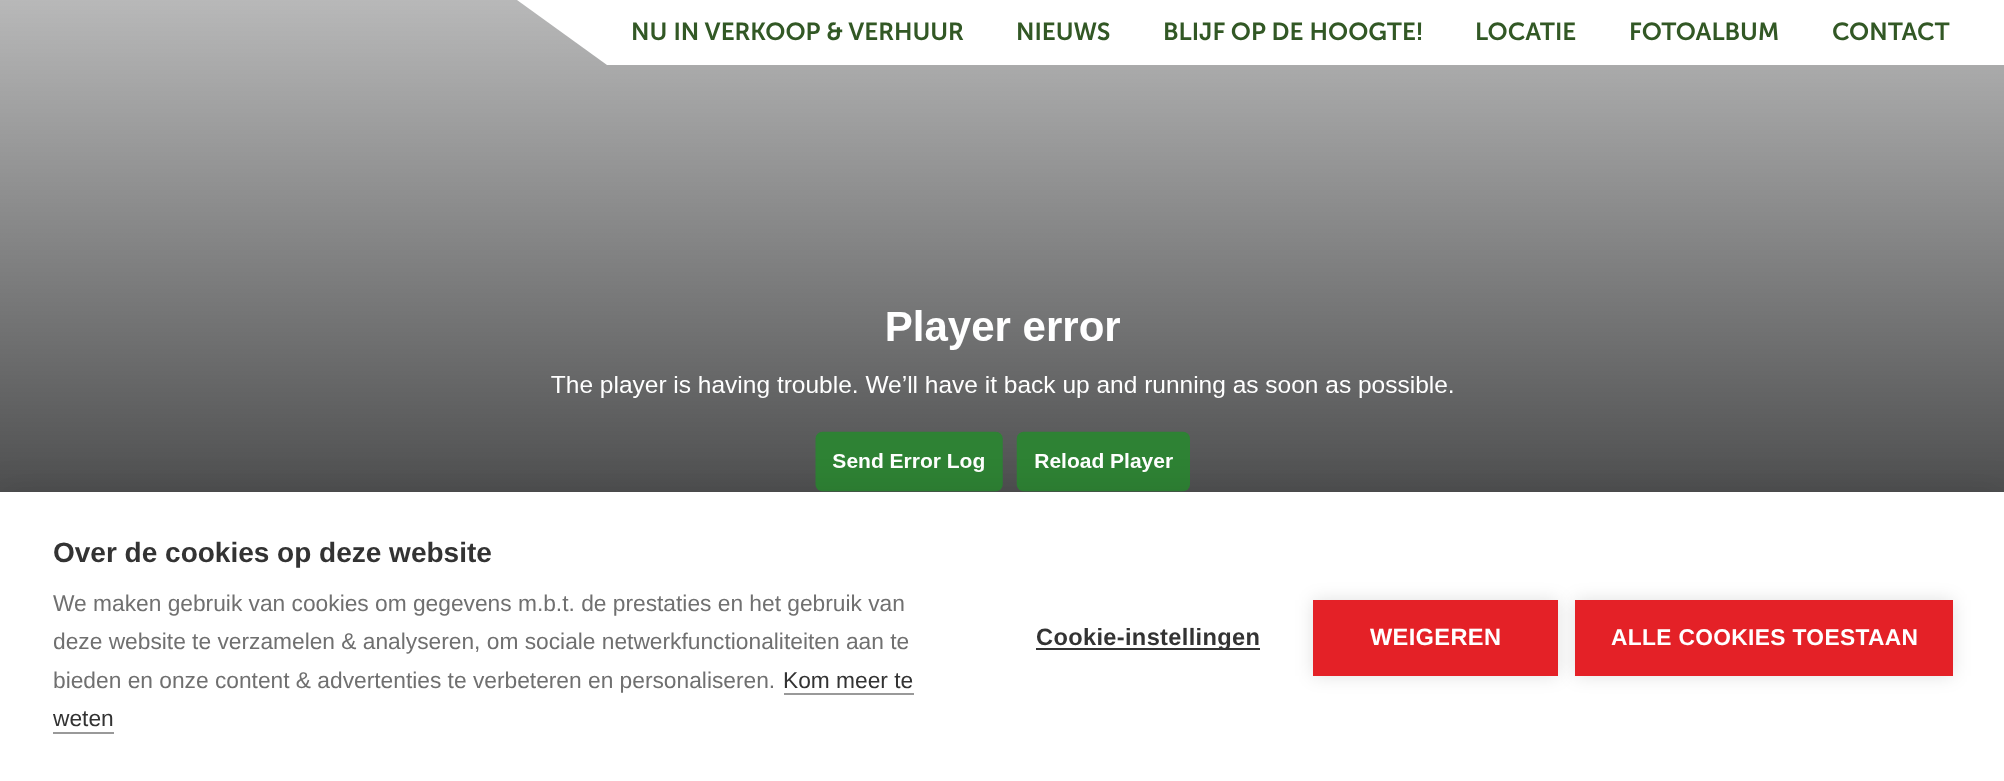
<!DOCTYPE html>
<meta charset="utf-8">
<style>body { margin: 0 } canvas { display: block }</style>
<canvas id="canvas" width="2004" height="781"></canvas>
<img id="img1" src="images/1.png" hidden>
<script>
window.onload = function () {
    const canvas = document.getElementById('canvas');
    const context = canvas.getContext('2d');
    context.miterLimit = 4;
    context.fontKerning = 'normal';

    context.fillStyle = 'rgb(255, 255, 255)';
    context.fillRect(0, 0, 2004, 781);
    context.drawImage(document.getElementById('img1'), 0, 0, 2004, 492);
    context.beginPath();
    context.moveTo(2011, 0);
    context.lineTo(517, 0);
    context.lineTo(607, 65);
    context.lineTo(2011, 65);
    context.closePath();
    context.fill();
    context.fillStyle = 'rgba(0, 0, 0, 0.1)';
    context.filter = 'blur(17.5px)';
    context.beginPath();
    context.rect(0, 492, 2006, 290);
    context.fill();
    context.filter = 'none';
    context.fillStyle = 'rgb(255, 255, 255)';
    context.fillRect(0, 492, 2004, 289);
    context.fillStyle = 'rgb(153, 153, 153)';
    context.fillRect(784, 693, 130, 2);
    context.fillRect(53, 732, 61, 2);
    context.fillStyle = 'rgb(51, 51, 51)';
    context.fillRect(1036, 648, 224, 2);
    context.fillStyle = 'rgba(0, 0, 0, 0.12)';
    context.filter = 'blur(9px)';
    context.beginPath();
    context.rect(1313, 600, 245, 76);
    context.fill();
    context.filter = 'none';
    context.fillStyle = 'rgb(228, 33, 39)';
    context.fillRect(1313, 600, 245, 76);
    context.fillStyle = 'rgba(0, 0, 0, 0.12)';
    context.filter = 'blur(9px)';
    context.beginPath();
    context.rect(1575, 600, 378, 76);
    context.fill();
    context.filter = 'none';
    context.fillStyle = 'rgb(228, 33, 39)';
    context.fillRect(1575, 600, 378, 76);
    context.font = '600 24.5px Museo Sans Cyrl';
    context.fillStyle = 'rgb(50, 88, 37)';
    context.fillText('NU IN VERKOOP & VERHUUR', 631, 40);
    context.fillText('NIEUWS', 1016, 40);
    context.fillText('BLIJF OP DE HOOGTE!', 1163, 40);
    context.fillText('LOCATIE', 1475, 40);
    context.fillText('FOTOALBUM', 1629, 40);
    context.fillText('CONTACT', 1832, 40);
    context.font = 'bold 28px Liberation Sans';
    context.fillStyle = 'rgb(51, 51, 51)';
    context.fillText('Over de cookies op deze website', 53, 562);
    context.font = '22.75px Liberation Sans';
    context.fillStyle = 'rgb(112, 112, 112)';
    context.fillText('We maken gebruik van cookies om gegevens m.b.t. de prestaties en het gebruik van', 53, 611);
    context.fillText('deze website te verzamelen & analyseren, om sociale netwerkfunctionaliteiten aan te', 53, 649);
    context.fillText('bieden en onze content & advertenties te verbeteren en personaliseren.', 53, 688);
    context.fillStyle = 'rgb(51, 51, 51)';
    context.fillText('Kom meer te', 783, 688);
    context.fillText('weten', 53, 726);
    context.letterSpacing = '0.35px';
    context.font = 'bold 23.6px Liberation Sans';
    context.fillText('Cookie-instellingen', 1036, 645);
    context.fillStyle = 'rgb(255, 255, 255)';
    context.fillText('WEIGEREN', 1370, 645);
    context.font = 'bold 22.75px Liberation Sans';
    context.fillText('ALLE COOKIES TOESTAAN', 1611, 645);
};
</script>
